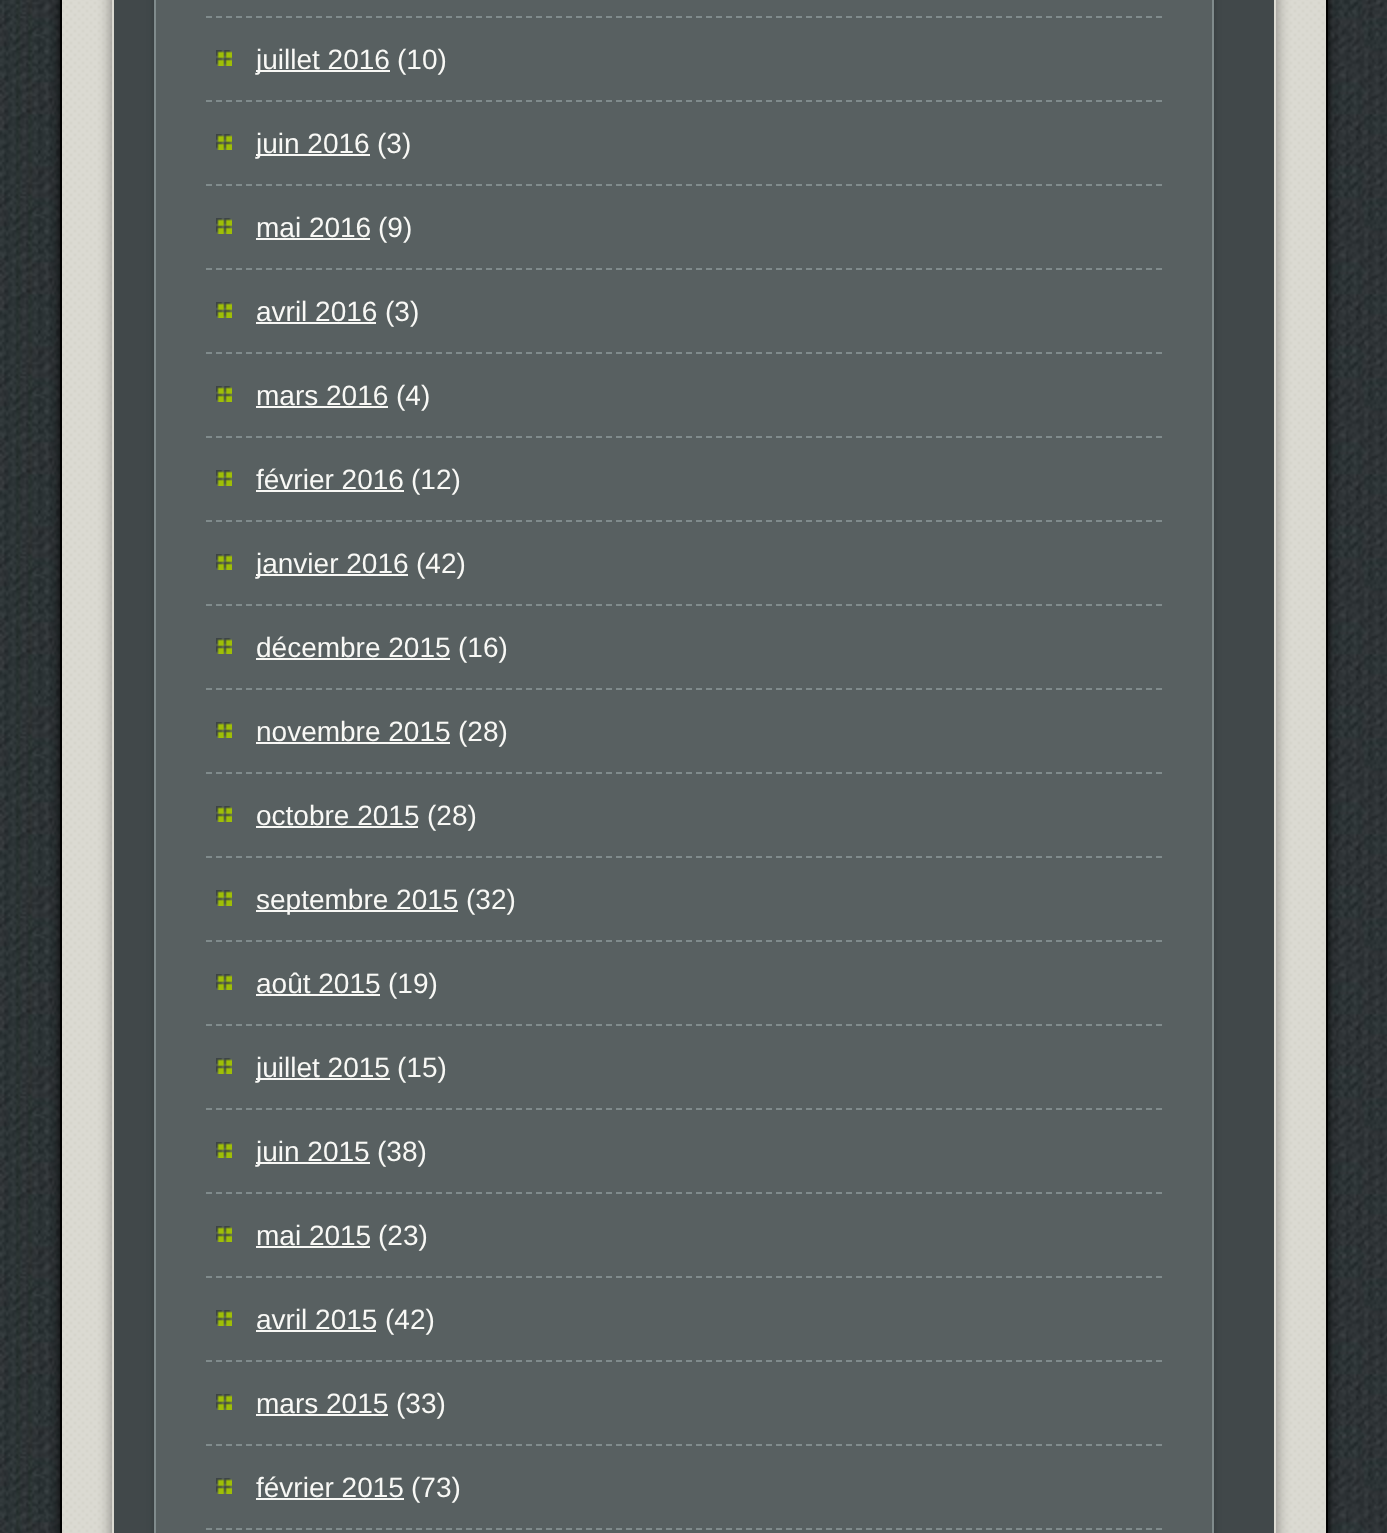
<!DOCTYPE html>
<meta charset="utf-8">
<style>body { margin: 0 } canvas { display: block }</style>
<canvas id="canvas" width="1387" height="1533"></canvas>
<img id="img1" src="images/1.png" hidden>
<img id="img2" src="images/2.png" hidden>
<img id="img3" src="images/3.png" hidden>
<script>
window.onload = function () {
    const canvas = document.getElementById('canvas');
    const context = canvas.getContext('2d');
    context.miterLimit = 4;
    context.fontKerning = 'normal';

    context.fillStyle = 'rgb(255, 255, 255)';
    context.fillRect(0, 0, 1387, 1533);
    context.drawImage(document.getElementById('img1'), 0, 0, 1387, 1533);
    context.fillStyle = 'rgb(0, 0, 0)';
    context.filter = 'blur(5px)';
    context.beginPath();
    context.roundRect(60, -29, 1268, 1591, 14);
    context.fill();
    context.filter = 'none';
    context.drawImage(document.getElementById('img2'), 62, 0, 1264, 1533);
    context.beginPath();
    context.moveTo(60, -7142);
    context.lineTo(1328, -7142);
    context.lineTo(1328, 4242);
    context.bezierCurveTo(1328, 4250, 1322, 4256, 1314, 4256);
    context.lineTo(74, 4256);
    context.bezierCurveTo(66, 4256, 60, 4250, 60, 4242);
    context.closePath();
    context.moveTo(62, -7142);
    context.lineTo(1326, -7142);
    context.lineTo(1326, 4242);
    context.bezierCurveTo(1326, 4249, 1321, 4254, 1314, 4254);
    context.lineTo(74, 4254);
    context.bezierCurveTo(67, 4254, 62, 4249, 62, 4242);
    context.closePath();
    context.fill('evenodd');
    context.fillStyle = 'rgb(125, 124, 120)';
    context.filter = 'blur(7px)';
    context.beginPath();
    context.roundRect(112, -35, 1164, 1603, 14);
    context.fill();
    context.filter = 'none';
    context.fillStyle = 'rgb(65, 72, 74)';
    context.beginPath();
    context.rect(113, -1, 1162, 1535);
    context.fill();
    context.strokeStyle = 'rgb(219, 218, 210)';
    context.lineWidth = 2;
    context.stroke();
    context.fillStyle = 'rgb(51, 57, 58)';
    context.filter = 'blur(3px)';
    context.beginPath();
    context.rect(154, -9, 1060, 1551);
    context.fill();
    context.filter = 'none';
    context.fillStyle = 'rgb(88, 96, 97)';
    context.beginPath();
    context.rect(155, -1, 1058, 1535);
    context.fill();
    context.strokeStyle = 'rgb(128, 139, 140)';
    context.stroke();
    context.drawImage(document.getElementById('img3'), 216, 50, 16, 16);
    context.beginPath();
    context.moveTo(206, 17);
    context.lineTo(1162, 17);
    context.setLineDash([6, 4]);
    context.stroke();
    context.fillStyle = 'rgb(248, 248, 245)';
    context.fillRect(256, 70, 134, 2);
    context.drawImage(document.getElementById('img3'), 216, 134, 16, 16);
    context.beginPath();
    context.moveTo(206, 101);
    context.lineTo(1162, 101);
    context.stroke();
    context.fillRect(256, 154, 114, 2);
    context.drawImage(document.getElementById('img3'), 216, 218, 16, 16);
    context.beginPath();
    context.moveTo(206, 185);
    context.lineTo(1162, 185);
    context.stroke();
    context.fillRect(256, 238, 114, 2);
    context.drawImage(document.getElementById('img3'), 216, 302, 16, 16);
    context.beginPath();
    context.moveTo(206, 269);
    context.lineTo(1162, 269);
    context.stroke();
    context.fillRect(256, 322, 120, 2);
    context.drawImage(document.getElementById('img3'), 216, 386, 16, 16);
    context.beginPath();
    context.moveTo(206, 353);
    context.lineTo(1162, 353);
    context.stroke();
    context.fillRect(256, 406, 132, 2);
    context.drawImage(document.getElementById('img3'), 216, 470, 16, 16);
    context.beginPath();
    context.moveTo(206, 437);
    context.lineTo(1162, 437);
    context.stroke();
    context.fillRect(256, 490, 148, 2);
    context.drawImage(document.getElementById('img3'), 216, 554, 16, 16);
    context.beginPath();
    context.moveTo(206, 521);
    context.lineTo(1162, 521);
    context.stroke();
    context.fillRect(256, 574, 152, 2);
    context.drawImage(document.getElementById('img3'), 216, 638, 16, 16);
    context.beginPath();
    context.moveTo(206, 605);
    context.lineTo(1162, 605);
    context.stroke();
    context.fillRect(256, 658, 194, 2);
    context.drawImage(document.getElementById('img3'), 216, 722, 16, 16);
    context.beginPath();
    context.moveTo(206, 689);
    context.lineTo(1162, 689);
    context.stroke();
    context.fillRect(256, 742, 194, 2);
    context.drawImage(document.getElementById('img3'), 216, 806, 16, 16);
    context.beginPath();
    context.moveTo(206, 773);
    context.lineTo(1162, 773);
    context.stroke();
    context.fillRect(256, 826, 162, 2);
    context.drawImage(document.getElementById('img3'), 216, 890, 16, 16);
    context.beginPath();
    context.moveTo(206, 857);
    context.lineTo(1162, 857);
    context.stroke();
    context.fillRect(256, 910, 202, 2);
    context.drawImage(document.getElementById('img3'), 216, 974, 16, 16);
    context.beginPath();
    context.moveTo(206, 941);
    context.lineTo(1162, 941);
    context.stroke();
    context.fillRect(256, 994, 124, 2);
    context.drawImage(document.getElementById('img3'), 216, 1058, 16, 16);
    context.beginPath();
    context.moveTo(206, 1025);
    context.lineTo(1162, 1025);
    context.stroke();
    context.fillRect(256, 1078, 134, 2);
    context.drawImage(document.getElementById('img3'), 216, 1142, 16, 16);
    context.beginPath();
    context.moveTo(206, 1109);
    context.lineTo(1162, 1109);
    context.stroke();
    context.fillRect(256, 1162, 114, 2);
    context.drawImage(document.getElementById('img3'), 216, 1226, 16, 16);
    context.beginPath();
    context.moveTo(206, 1193);
    context.lineTo(1162, 1193);
    context.stroke();
    context.fillRect(256, 1246, 114, 2);
    context.drawImage(document.getElementById('img3'), 216, 1310, 16, 16);
    context.beginPath();
    context.moveTo(206, 1277);
    context.lineTo(1162, 1277);
    context.stroke();
    context.fillRect(256, 1330, 120, 2);
    context.drawImage(document.getElementById('img3'), 216, 1394, 16, 16);
    context.beginPath();
    context.moveTo(206, 1361);
    context.lineTo(1162, 1361);
    context.stroke();
    context.fillRect(256, 1414, 132, 2);
    context.drawImage(document.getElementById('img3'), 216, 1478, 16, 16);
    context.beginPath();
    context.moveTo(206, 1445);
    context.lineTo(1162, 1445);
    context.stroke();
    context.fillRect(256, 1498, 148, 2);
    context.beginPath();
    context.moveTo(206, 1529);
    context.lineTo(1162, 1529);
    context.stroke();
    context.font = '28px Liberation Sans';
    context.fillText('juillet 2016', 256, 69);
    context.fillText('(10)', 397, 69);
    context.fillText('juin 2016', 256, 153);
    context.fillText('(3)', 377, 153);
    context.fillText('mai 2016', 256, 237);
    context.fillText('(9)', 378, 237);
    context.fillText('avril 2016', 256, 321);
    context.fillText('(3)', 385, 321);
    context.fillText('mars 2016', 256, 405);
    context.fillText('(4)', 396, 405);
    context.fillText('février 2016', 256, 489);
    context.fillText('(12)', 411, 489);
    context.fillText('janvier 2016', 256, 573);
    context.fillText('(42)', 416, 573);
    context.fillText('décembre 2015', 256, 657);
    context.fillText('(16)', 458, 657);
    context.fillText('novembre 2015', 256, 741);
    context.fillText('(28)', 458, 741);
    context.fillText('octobre 2015', 256, 825);
    context.fillText('(28)', 427, 825);
    context.fillText('septembre 2015', 256, 909);
    context.fillText('(32)', 466, 909);
    context.fillText('août 2015', 256, 993);
    context.fillText('(19)', 388, 993);
    context.fillText('juillet 2015', 256, 1077);
    context.fillText('(15)', 397, 1077);
    context.fillText('juin 2015', 256, 1161);
    context.fillText('(38)', 377, 1161);
    context.fillText('mai 2015', 256, 1245);
    context.fillText('(23)', 378, 1245);
    context.fillText('avril 2015', 256, 1329);
    context.fillText('(42)', 385, 1329);
    context.fillText('mars 2015', 256, 1413);
    context.fillText('(33)', 396, 1413);
    context.fillText('février 2015', 256, 1497);
    context.fillText('(73)', 411, 1497);
};
</script>
